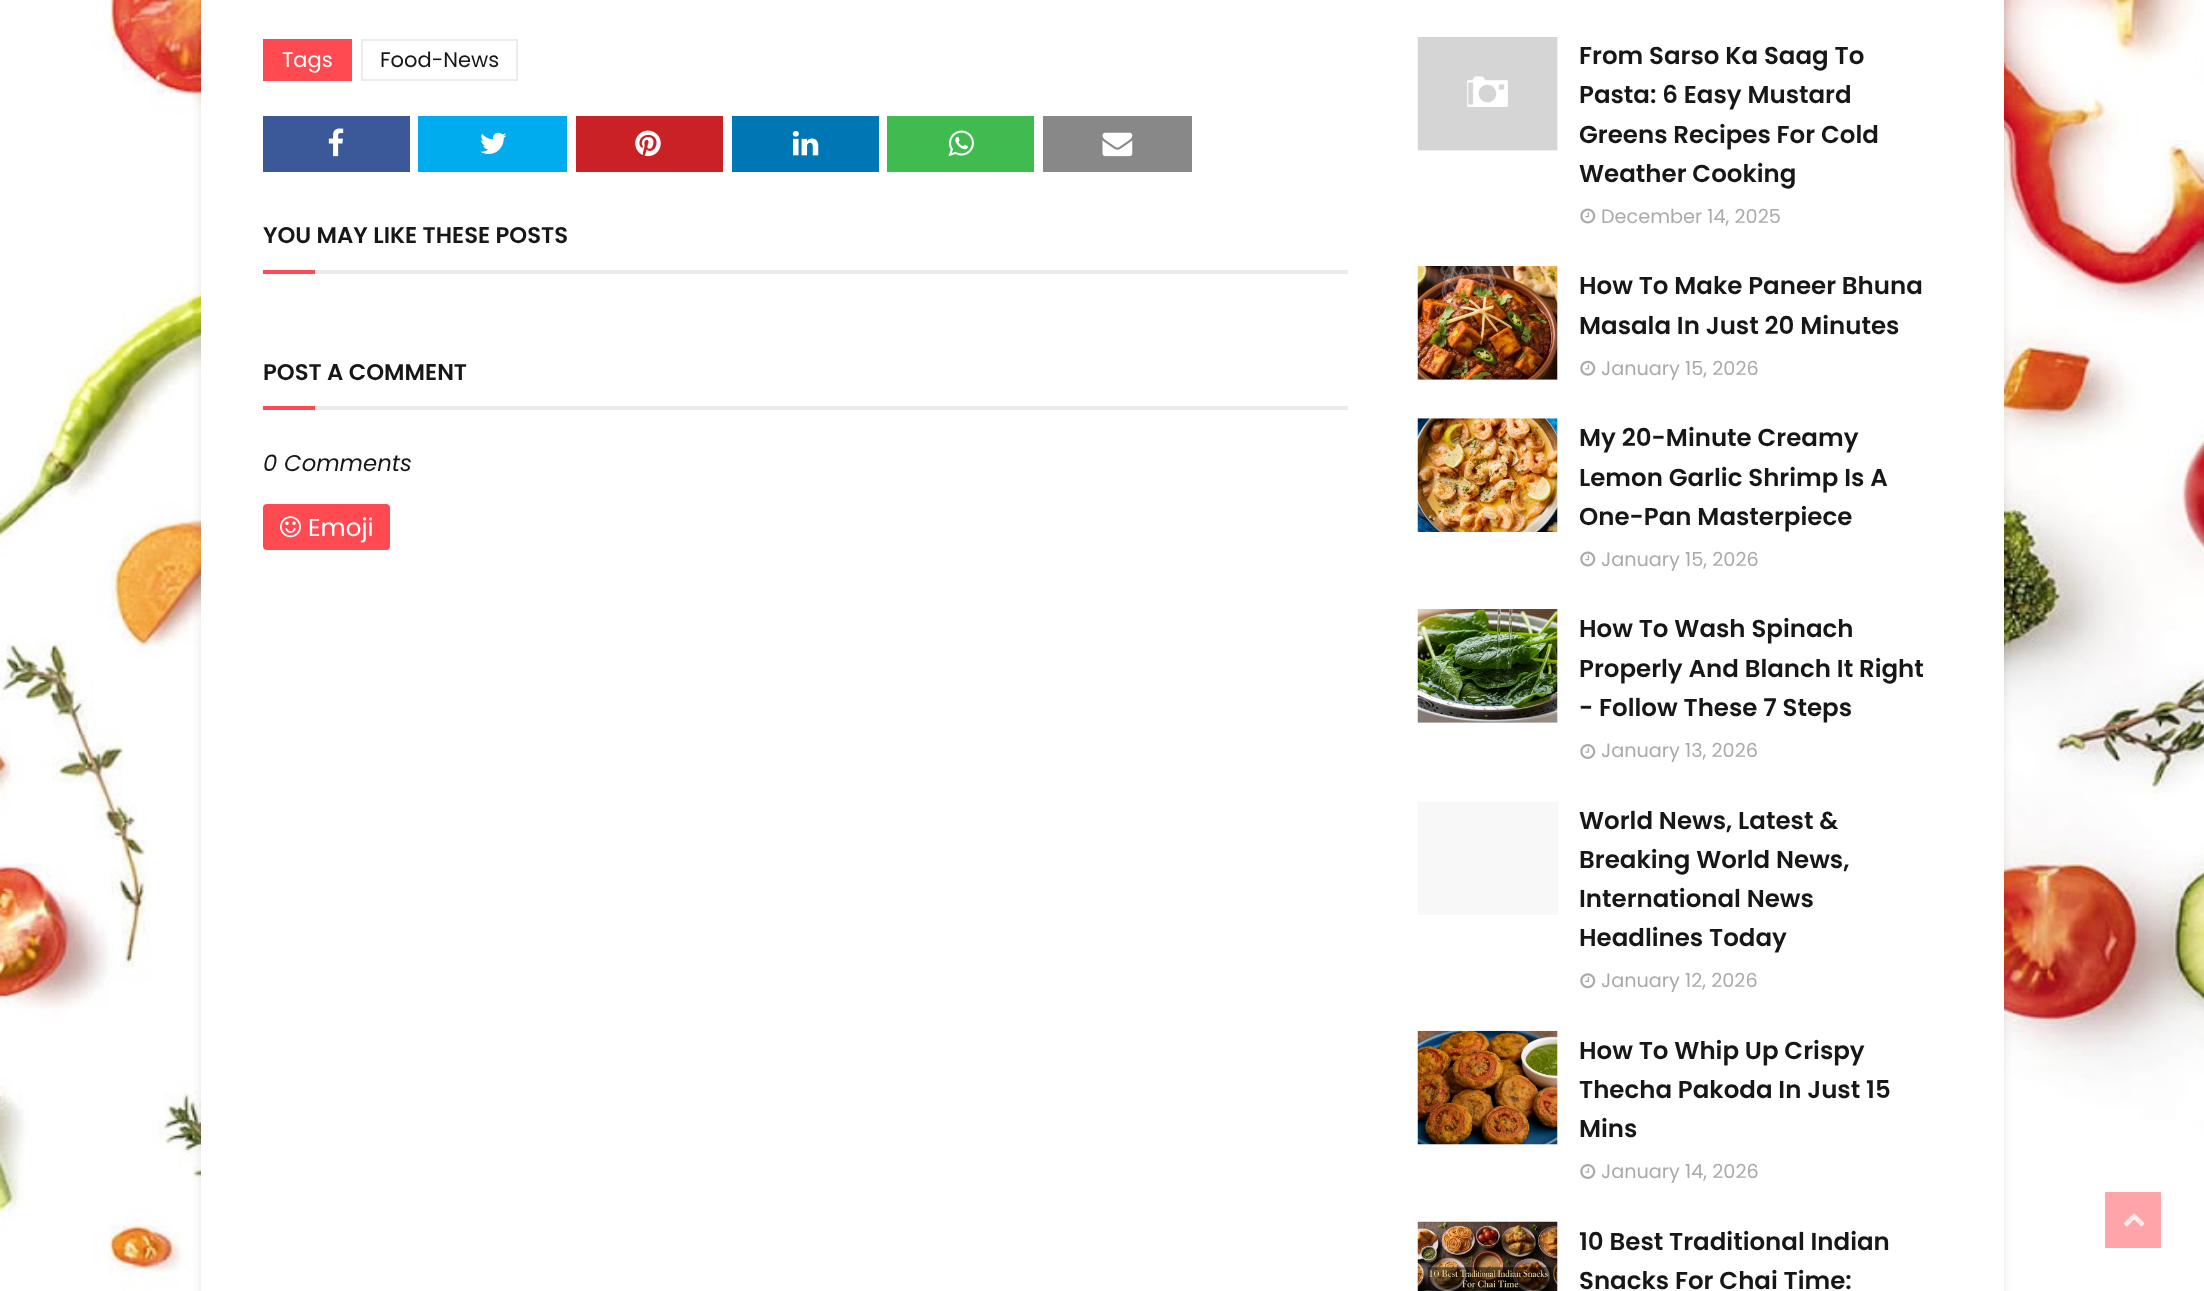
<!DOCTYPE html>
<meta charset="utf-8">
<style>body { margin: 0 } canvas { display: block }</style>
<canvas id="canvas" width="2204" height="1291"></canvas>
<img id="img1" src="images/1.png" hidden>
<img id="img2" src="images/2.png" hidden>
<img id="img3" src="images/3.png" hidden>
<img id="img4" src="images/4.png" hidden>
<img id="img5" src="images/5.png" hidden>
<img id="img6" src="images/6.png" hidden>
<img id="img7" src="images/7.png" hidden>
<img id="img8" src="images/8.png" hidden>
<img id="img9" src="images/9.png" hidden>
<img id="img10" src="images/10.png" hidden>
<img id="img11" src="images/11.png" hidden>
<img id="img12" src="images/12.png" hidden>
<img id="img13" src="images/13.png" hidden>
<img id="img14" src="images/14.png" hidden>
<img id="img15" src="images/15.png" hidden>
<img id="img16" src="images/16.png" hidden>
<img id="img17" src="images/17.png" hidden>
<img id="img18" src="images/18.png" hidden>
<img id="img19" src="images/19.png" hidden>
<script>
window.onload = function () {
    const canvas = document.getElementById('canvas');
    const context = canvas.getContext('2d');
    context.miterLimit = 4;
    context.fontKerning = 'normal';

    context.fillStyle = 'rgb(255, 255, 255)';
    context.fillRect(0, 0, 2204, 1291);
    context.drawImage(document.getElementById('img1'), 0, 0, 2204, 1291);
    context.fillStyle = 'rgba(0, 0, 0, 0.1)';
    context.filter = 'blur(4.5px)';
    context.beginPath();
    context.rect(201, -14, 1803, 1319);
    context.fill();
    context.filter = 'none';
    context.fillStyle = 'rgb(255, 255, 255)';
    context.fillRect(201, 0, 1803, 1291);
    context.fillStyle = 'rgb(255, 74, 82)';
    context.fillRect(263, 39, 89, 42);
    context.strokeStyle = 'rgb(235, 235, 235)';
    context.lineWidth = 2;
    context.strokeRect(362, 40, 155, 40);
    context.fillStyle = 'rgb(59, 89, 153)';
    context.fillRect(263, 116, 147, 56);
    context.drawImage(document.getElementById('img2'), 328, 128, 16, 29);
    context.fillStyle = 'rgb(0, 172, 238)';
    context.fillRect(418, 116, 149, 56);
    context.drawImage(document.getElementById('img3'), 480, 132, 27, 22);
    context.fillStyle = 'rgb(202, 33, 39)';
    context.fillRect(576, 116, 147, 56);
    context.drawImage(document.getElementById('img4'), 635, 130, 26, 27);
    context.fillStyle = 'rgb(0, 119, 181)';
    context.fillRect(732, 116, 147, 56);
    context.drawImage(document.getElementById('img5'), 792, 131, 27, 25);
    context.fillStyle = 'rgb(63, 187, 80)';
    context.fillRect(887, 116, 147, 56);
    context.drawImage(document.getElementById('img6'), 948, 130, 26, 27);
    context.fillStyle = 'rgb(136, 136, 136)';
    context.fillRect(1043, 116, 149, 56);
    context.drawImage(document.getElementById('img7'), 1102, 132, 31, 25);
    context.fillStyle = 'rgb(235, 235, 235)';
    context.fillRect(315, 270, 1033, 4);
    context.fillStyle = 'rgb(255, 74, 82)';
    context.fillRect(263, 270, 52, 4);
    context.fillStyle = 'rgb(235, 235, 235)';
    context.fillRect(315, 406, 1033, 4);
    context.fillStyle = 'rgb(255, 74, 82)';
    context.fillRect(263, 406, 52, 4);
    context.beginPath();
    context.roundRect(263, 504, 127, 46, 4);
    context.fill();
    context.drawImage(document.getElementById('img8'), 280, 516, 21, 22);
    context.fillStyle = 'rgb(248, 248, 248)';
    context.fillRect(1418, 37, 140, 114);
    context.drawImage(document.getElementById('img9'), 1417, 37, 141, 114);
    context.drawImage(document.getElementById('img10'), 1580, 208, 16, 16);
    context.fillRect(1418, 266, 140, 114);
    context.drawImage(document.getElementById('img11'), 1417, 266, 141, 114);
    context.drawImage(document.getElementById('img12'), 1580, 360, 16, 16);
    context.fillRect(1418, 418, 140, 114);
    context.drawImage(document.getElementById('img13'), 1417, 418, 141, 114);
    context.drawImage(document.getElementById('img10'), 1580, 551, 16, 16);
    context.fillRect(1418, 609, 140, 114);
    context.drawImage(document.getElementById('img14'), 1417, 609, 141, 114);
    context.drawImage(document.getElementById('img15'), 1580, 744, 16, 15);
    context.fillRect(1418, 802, 140, 113);
    context.drawImage(document.getElementById('img16'), 1580, 973, 16, 16);
    context.fillRect(1418, 1031, 140, 114);
    context.drawImage(document.getElementById('img17'), 1417, 1030, 141, 115);
    context.drawImage(document.getElementById('img15'), 1580, 1164, 16, 15);
    context.fillRect(1557, 1222, 1, 69);
    context.drawImage(document.getElementById('img18'), 1417, 1221, 141, 70);
    context.fillStyle = 'rgb(255, 165, 169)';
    context.fillRect(2105, 1192, 56, 56);
    context.drawImage(document.getElementById('img19'), 2124, 1213, 21, 14);
    context.font = '21px Poppins';
    context.fillStyle = 'rgb(255, 255, 255)';
    context.fillText('Tags', 282, 67);
    context.fillStyle = 'rgb(23, 23, 23)';
    context.fillText('Food-News', 380, 67);
    context.font = '600 22.75px Poppins';
    context.fillText('YOU MAY LIKE THESE POSTS', 263, 243);
    context.fillText('POST A COMMENT', 263, 380);
    context.font = 'italic 22.75px Poppins';
    context.fillText('0 Comments', 263, 471);
    context.font = '24.5px Poppins';
    context.fillStyle = 'rgb(255, 255, 255)';
    context.fillText('Emoji', 308, 536);
    context.font = '600 24.5px Poppins';
    context.fillStyle = 'rgb(23, 23, 23)';
    context.fillText('From Sarso Ka Saag To', 1579, 64);
    context.fillText('Pasta: 6 Easy Mustard', 1579, 103);
    context.fillText('Greens Recipes For Cold', 1579, 143);
    context.fillText('Weather Cooking', 1579, 182);
    context.font = '19.25px Poppins';
    context.fillStyle = 'rgb(170, 170, 170)';
    context.fillText('December 14, 2025', 1601, 223);
    context.font = '600 24.5px Poppins';
    context.fillStyle = 'rgb(23, 23, 23)';
    context.fillText('How To Make Paneer Bhuna', 1579, 294);
    context.fillText('Masala In Just 20 Minutes', 1579, 334);
    context.font = '19.25px Poppins';
    context.fillStyle = 'rgb(170, 170, 170)';
    context.fillText('January 15, 2026', 1601, 375);
    context.font = '600 24.5px Poppins';
    context.fillStyle = 'rgb(23, 23, 23)';
    context.fillText('My 20-Minute Creamy', 1579, 446);
    context.fillText('Lemon Garlic Shrimp Is A', 1579, 486);
    context.fillText('One-Pan Masterpiece', 1579, 525);
    context.font = '19.25px Poppins';
    context.fillStyle = 'rgb(170, 170, 170)';
    context.fillText('January 15, 2026', 1601, 566);
    context.font = '600 24.5px Poppins';
    context.fillStyle = 'rgb(23, 23, 23)';
    context.fillText('How To Wash Spinach', 1579, 637);
    context.fillText('Properly And Blanch It Right', 1579, 677);
    context.fillText('- Follow These 7 Steps', 1579, 716);
    context.font = '19.25px Poppins';
    context.fillStyle = 'rgb(170, 170, 170)';
    context.fillText('January 13, 2026', 1601, 757);
    context.font = '600 24.5px Poppins';
    context.fillStyle = 'rgb(23, 23, 23)';
    context.fillText('World News, Latest &', 1579, 829);
    context.fillText('Breaking World News,', 1579, 868);
    context.fillText('International News', 1579, 907);
    context.fillText('Headlines Today', 1579, 946);
    context.font = '19.25px Poppins';
    context.fillStyle = 'rgb(170, 170, 170)';
    context.fillText('January 12, 2026', 1601, 987);
    context.font = '600 24.5px Poppins';
    context.fillStyle = 'rgb(23, 23, 23)';
    context.fillText('How To Whip Up Crispy', 1579, 1059);
    context.fillText('Thecha Pakoda In Just 15', 1579, 1098);
    context.fillText('Mins', 1579, 1137);
    context.font = '19.25px Poppins';
    context.fillStyle = 'rgb(170, 170, 170)';
    context.fillText('January 14, 2026', 1601, 1178);
    context.font = '600 24.5px Poppins';
    context.fillStyle = 'rgb(23, 23, 23)';
    context.fillText('10 Best Traditional Indian', 1579, 1250);
    context.fillText('Snacks For Chai Time:', 1579, 1289);
};
</script>
